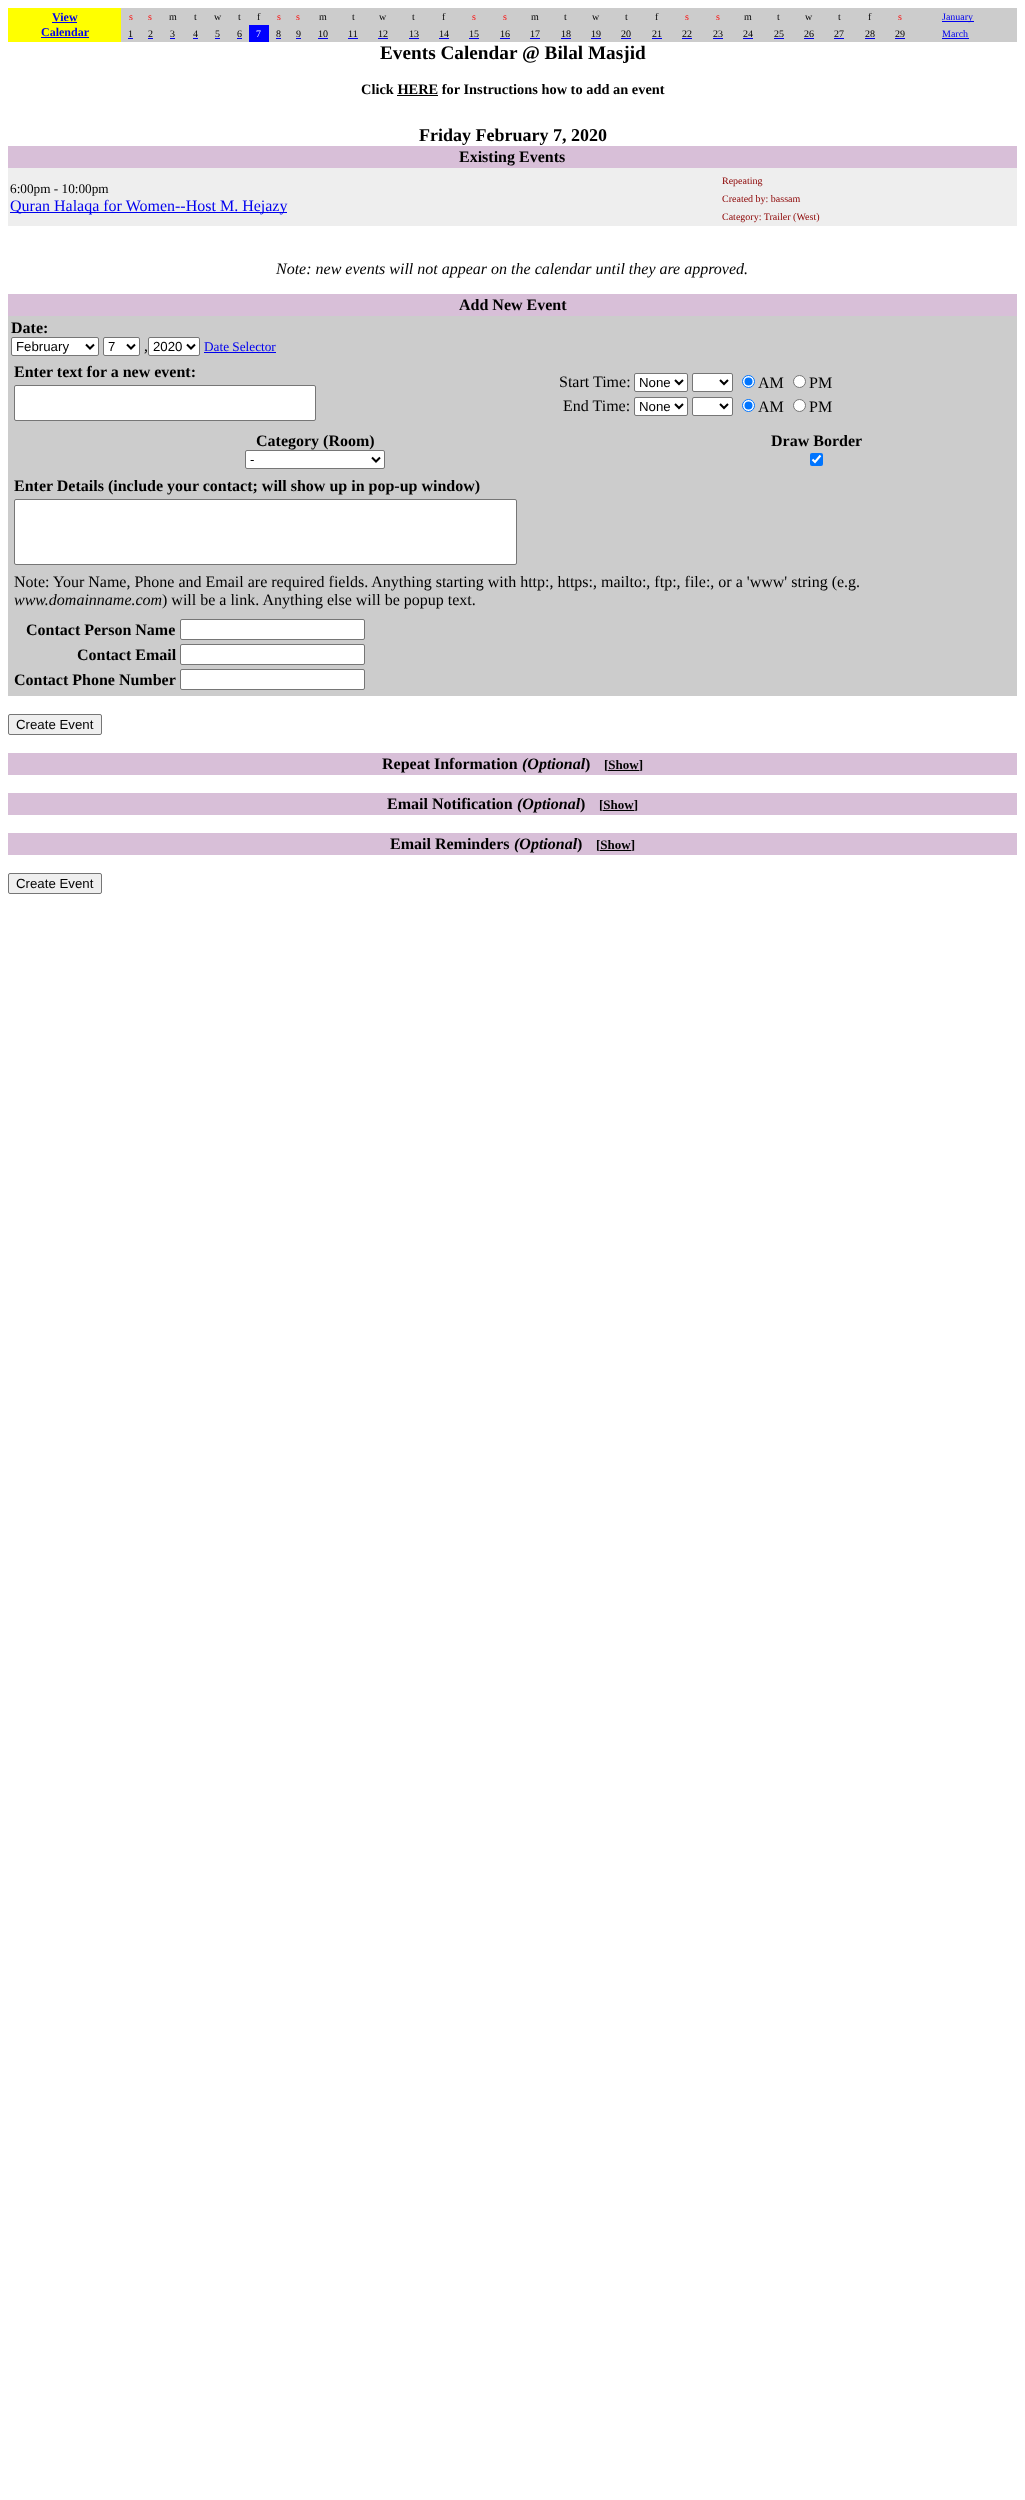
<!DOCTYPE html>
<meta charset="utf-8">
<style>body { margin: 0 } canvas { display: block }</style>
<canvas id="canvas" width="1025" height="2500"></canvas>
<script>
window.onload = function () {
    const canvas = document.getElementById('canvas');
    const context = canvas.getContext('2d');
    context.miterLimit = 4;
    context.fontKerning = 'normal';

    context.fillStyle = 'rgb(255, 255, 255)';
    context.fillRect(0, 0, 1025, 2500);
    context.fillStyle = 'rgb(204, 204, 204)';
    context.fillRect(121, 8, 896, 34);
    context.fillStyle = 'rgb(255, 255, 0)';
    context.fillRect(8, 8, 113, 34);
    context.fillStyle = 'rgb(0, 0, 238)';
    context.fillRect(52, 22, 25, 1);
    context.fillRect(41, 37, 48, 1);
    context.fillRect(942, 21, 32, 1);
    context.fillRect(128, 38, 5, 1);
    context.fillRect(148, 38, 5, 1);
    context.fillRect(170, 38, 5, 1);
    context.fillRect(193, 38, 5, 1);
    context.fillRect(215, 38, 5, 1);
    context.fillRect(237, 38, 5, 1);
    context.fillStyle = 'rgb(0, 0, 255)';
    context.fillRect(249, 25, 20, 17);
    context.fillStyle = 'rgb(0, 0, 238)';
    context.fillRect(256, 38, 5, 1);
    context.fillRect(276, 38, 5, 1);
    context.fillRect(296, 38, 5, 1);
    context.fillRect(318, 38, 10, 1);
    context.fillRect(348, 38, 10, 1);
    context.fillRect(378, 38, 10, 1);
    context.fillRect(409, 38, 10, 1);
    context.fillRect(439, 38, 10, 1);
    context.fillRect(469, 38, 10, 1);
    context.fillRect(500, 38, 10, 1);
    context.fillRect(530, 38, 10, 1);
    context.fillRect(561, 38, 10, 1);
    context.fillRect(591, 38, 10, 1);
    context.fillRect(621, 38, 10, 1);
    context.fillRect(652, 38, 10, 1);
    context.fillRect(682, 38, 10, 1);
    context.fillRect(713, 38, 10, 1);
    context.fillRect(743, 38, 10, 1);
    context.fillRect(774, 38, 10, 1);
    context.fillRect(804, 38, 10, 1);
    context.fillRect(834, 38, 10, 1);
    context.fillRect(865, 38, 10, 1);
    context.fillRect(895, 38, 10, 1);
    context.fillRect(942, 38, 27, 1);
    context.fillStyle = 'rgb(0, 0, 0)';
    context.fillRect(397, 95, 41, 1);
    context.fillStyle = 'rgb(216, 191, 216)';
    context.fillRect(8, 146, 1009, 22);
    context.fillStyle = 'rgb(238, 238, 238)';
    context.fillRect(8, 168, 1009, 58);
    context.fillStyle = 'rgb(0, 0, 238)';
    context.fillRect(10, 212, 277, 1);
    context.fillStyle = 'rgb(216, 191, 216)';
    context.fillRect(8, 294, 1009, 22);
    context.fillStyle = 'rgb(204, 204, 204)';
    context.fillRect(8, 316, 1009, 380);
    context.fillStyle = 'rgb(255, 255, 255)';
    context.beginPath();
    context.roundRect(11.5, 337.5, 87, 18, 1.5);
    context.fill();
    context.strokeStyle = 'rgb(118, 118, 118)';
    context.stroke();
    context.beginPath();
    context.moveTo(86, 344.5);
    context.lineTo(90, 348.5);
    context.lineTo(94, 344.5);
    context.strokeStyle = 'rgb(0, 0, 0)';
    context.lineWidth = 2;
    context.stroke();
    context.beginPath();
    context.roundRect(103.5, 337.5, 36, 18, 1.5);
    context.fill();
    context.strokeStyle = 'rgb(118, 118, 118)';
    context.lineWidth = 1;
    context.stroke();
    context.beginPath();
    context.moveTo(127, 344.5);
    context.lineTo(131, 348.5);
    context.lineTo(135, 344.5);
    context.strokeStyle = 'rgb(0, 0, 0)';
    context.lineWidth = 2;
    context.stroke();
    context.beginPath();
    context.roundRect(148.5, 337.5, 51, 18, 1.5);
    context.fill();
    context.strokeStyle = 'rgb(118, 118, 118)';
    context.lineWidth = 1;
    context.stroke();
    context.beginPath();
    context.moveTo(187, 344.5);
    context.lineTo(191, 348.5);
    context.lineTo(195, 344.5);
    context.strokeStyle = 'rgb(0, 0, 0)';
    context.lineWidth = 2;
    context.stroke();
    context.fillStyle = 'rgb(0, 0, 238)';
    context.fillRect(204, 352, 72, 1);
    context.fillStyle = 'rgb(255, 255, 255)';
    context.beginPath();
    context.roundRect(14.5, 385.5, 301, 35, 1.5);
    context.fill();
    context.strokeStyle = 'rgb(118, 118, 118)';
    context.lineWidth = 1;
    context.stroke();
    context.beginPath();
    context.roundRect(634.5, 373.5, 53, 18, 1.5);
    context.fill();
    context.stroke();
    context.beginPath();
    context.moveTo(675, 380);
    context.lineTo(679, 384);
    context.lineTo(683, 380);
    context.strokeStyle = 'rgb(0, 0, 0)';
    context.lineWidth = 2;
    context.stroke();
    context.beginPath();
    context.roundRect(692.5, 373.5, 40, 18, 1.5);
    context.fill();
    context.strokeStyle = 'rgb(118, 118, 118)';
    context.lineWidth = 1;
    context.stroke();
    context.beginPath();
    context.moveTo(720, 380);
    context.lineTo(724, 384);
    context.lineTo(728, 380);
    context.strokeStyle = 'rgb(0, 0, 0)';
    context.lineWidth = 2;
    context.stroke();
    context.beginPath();
    context.arc(748.5, 381.5, 6, 0, 2 * Math.PI);
    context.fill();
    context.strokeStyle = 'rgb(0, 117, 255)';
    context.lineWidth = 1;
    context.stroke();
    context.fillStyle = 'rgb(0, 117, 255)';
    context.beginPath();
    context.arc(748.5, 381.5, 4, 0, 2 * Math.PI);
    context.fill();
    context.fillStyle = 'rgb(255, 255, 255)';
    context.beginPath();
    context.arc(799.5, 381.5, 6, 0, 2 * Math.PI);
    context.fill();
    context.strokeStyle = 'rgb(118, 118, 118)';
    context.stroke();
    context.beginPath();
    context.roundRect(634.5, 397.5, 53, 18, 1.5);
    context.fill();
    context.stroke();
    context.beginPath();
    context.moveTo(675, 404);
    context.lineTo(679, 408);
    context.lineTo(683, 404);
    context.strokeStyle = 'rgb(0, 0, 0)';
    context.lineWidth = 2;
    context.stroke();
    context.beginPath();
    context.roundRect(692.5, 397.5, 40, 18, 1.5);
    context.fill();
    context.strokeStyle = 'rgb(118, 118, 118)';
    context.lineWidth = 1;
    context.stroke();
    context.beginPath();
    context.moveTo(720, 404);
    context.lineTo(724, 408);
    context.lineTo(728, 404);
    context.strokeStyle = 'rgb(0, 0, 0)';
    context.lineWidth = 2;
    context.stroke();
    context.beginPath();
    context.arc(748.5, 405.5, 6, 0, 2 * Math.PI);
    context.fill();
    context.strokeStyle = 'rgb(0, 117, 255)';
    context.lineWidth = 1;
    context.stroke();
    context.fillStyle = 'rgb(0, 117, 255)';
    context.beginPath();
    context.arc(748.5, 405.5, 4, 0, 2 * Math.PI);
    context.fill();
    context.fillStyle = 'rgb(255, 255, 255)';
    context.beginPath();
    context.arc(799.5, 405.5, 6, 0, 2 * Math.PI);
    context.fill();
    context.strokeStyle = 'rgb(118, 118, 118)';
    context.stroke();
    context.beginPath();
    context.roundRect(245.5, 450.5, 139, 18, 1.5);
    context.fill();
    context.stroke();
    context.beginPath();
    context.moveTo(372, 457.5);
    context.lineTo(376, 461.5);
    context.lineTo(380, 457.5);
    context.strokeStyle = 'rgb(0, 0, 0)';
    context.lineWidth = 2;
    context.stroke();
    context.fillStyle = 'rgb(0, 117, 255)';
    context.beginPath();
    context.roundRect(810, 453, 13, 13, 2);
    context.fill();
    context.beginPath();
    context.moveTo(812.5, 459.5);
    context.lineTo(815, 462);
    context.lineTo(820.5, 455.5);
    context.strokeStyle = 'rgb(255, 255, 255)';
    context.lineWidth = 2.1;
    context.stroke();
    context.fillStyle = 'rgb(255, 255, 255)';
    context.beginPath();
    context.roundRect(14.5, 499.5, 502, 65, 1.5);
    context.fill();
    context.strokeStyle = 'rgb(118, 118, 118)';
    context.lineWidth = 1;
    context.stroke();
    context.beginPath();
    context.roundRect(180.5, 619.5, 184, 20, 1.5);
    context.fill();
    context.stroke();
    context.beginPath();
    context.roundRect(180.5, 644.5, 184, 20, 1.5);
    context.fill();
    context.stroke();
    context.beginPath();
    context.roundRect(180.5, 669.5, 184, 20, 1.5);
    context.fill();
    context.stroke();
    context.fillStyle = 'rgb(239, 239, 239)';
    context.beginPath();
    context.roundRect(8.5, 714.5, 93, 20, 1.5);
    context.fill();
    context.stroke();
    context.fillStyle = 'rgb(216, 191, 216)';
    context.fillRect(8, 753, 1009, 22);
    context.fillStyle = 'rgb(0, 0, 0)';
    context.fillRect(608, 770, 31, 1);
    context.fillStyle = 'rgb(216, 191, 216)';
    context.fillRect(8, 793, 1009, 22);
    context.fillStyle = 'rgb(0, 0, 0)';
    context.fillRect(603, 810, 31, 1);
    context.fillStyle = 'rgb(216, 191, 216)';
    context.fillRect(8, 833, 1009, 22);
    context.fillStyle = 'rgb(0, 0, 0)';
    context.fillRect(600, 850, 31, 1);
    context.fillStyle = 'rgb(239, 239, 239)';
    context.beginPath();
    context.roundRect(8.5, 873.5, 93, 20, 1.5);
    context.fill();
    context.stroke();
    context.font = 'bold 12px Liberation Serif';
    context.fillStyle = 'rgb(0, 0, 238)';
    context.fillText('View', 52, 21);
    context.fillText('Calendar', 41, 36);
    context.font = '10px Liberation Serif';
    context.fillStyle = 'rgb(255, 0, 0)';
    context.fillText('s', 129, 20);
    context.fillText('s', 148, 20);
    context.fillStyle = 'rgb(0, 0, 0)';
    context.fillText('m', 169, 20);
    context.fillText('t', 194, 20);
    context.fillText('w', 214, 20);
    context.fillText('t', 238, 20);
    context.fillText('f', 257, 20);
    context.fillStyle = 'rgb(255, 0, 0)';
    context.fillText('s', 277, 20);
    context.fillText('s', 296, 20);
    context.fillStyle = 'rgb(0, 0, 0)';
    context.fillText('m', 319, 20);
    context.fillText('t', 352, 20);
    context.fillText('w', 379, 20);
    context.fillText('t', 412, 20);
    context.fillText('f', 442, 20);
    context.fillStyle = 'rgb(255, 0, 0)';
    context.fillText('s', 472, 20);
    context.fillText('s', 503, 20);
    context.fillStyle = 'rgb(0, 0, 0)';
    context.fillText('m', 531, 20);
    context.fillText('t', 564, 20);
    context.fillText('w', 592, 20);
    context.fillText('t', 625, 20);
    context.fillText('f', 655, 20);
    context.fillStyle = 'rgb(255, 0, 0)';
    context.fillText('s', 685, 20);
    context.fillText('s', 716, 20);
    context.fillStyle = 'rgb(0, 0, 0)';
    context.fillText('m', 744, 20);
    context.fillText('t', 777, 20);
    context.fillText('w', 805, 20);
    context.fillText('t', 838, 20);
    context.fillText('f', 868, 20);
    context.fillStyle = 'rgb(255, 0, 0)';
    context.fillText('s', 898, 20);
    context.fillStyle = 'rgb(0, 0, 238)';
    context.fillText('January', 942, 20);
    context.fillStyle = 'rgb(0, 0, 0)';
    context.fillText('1', 128, 37);
    context.fillText('2', 148, 37);
    context.fillText('3', 170, 37);
    context.fillText('4', 193, 37);
    context.fillText('5', 215, 37);
    context.fillText('6', 237, 37);
    context.fillStyle = 'rgb(255, 255, 255)';
    context.fillText('7', 256, 37);
    context.fillStyle = 'rgb(0, 0, 0)';
    context.fillText('8', 276, 37);
    context.fillText('9', 296, 37);
    context.fillText('10', 318, 37);
    context.fillText('11', 348, 37);
    context.fillText('12', 378, 37);
    context.fillText('13', 409, 37);
    context.fillText('14', 439, 37);
    context.fillText('15', 469, 37);
    context.fillText('16', 500, 37);
    context.fillText('17', 530, 37);
    context.fillText('18', 561, 37);
    context.fillText('19', 591, 37);
    context.fillText('20', 621, 37);
    context.fillText('21', 652, 37);
    context.fillText('22', 682, 37);
    context.fillText('23', 713, 37);
    context.fillText('24', 743, 37);
    context.fillText('25', 774, 37);
    context.fillText('26', 804, 37);
    context.fillText('27', 834, 37);
    context.fillText('28', 865, 37);
    context.fillText('29', 895, 37);
    context.fillStyle = 'rgb(0, 0, 238)';
    context.fillText('March', 942, 37);
    context.font = 'bold 19.25px Liberation Serif';
    context.fillStyle = 'rgb(0, 0, 0)';
    context.fillText('Events Calendar @ Bilal Masjid', 380, 59);
    context.font = 'bold 14.4px Liberation Serif';
    context.fillText('Click HERE for Instructions how to add an event', 361, 94);
    context.font = 'bold 18px Liberation Serif';
    context.fillText('Friday February 7, 2020', 419, 141);
    context.font = 'bold 16px Liberation Serif';
    context.fillText('Existing Events', 459, 162);
    context.font = '13.25px Liberation Serif';
    context.fillText('6:00pm - 10:00pm', 10, 193);
    context.font = '16px Liberation Serif';
    context.fillStyle = 'rgb(0, 0, 238)';
    context.fillText('Quran Halaqa for Women--Host M. Hejazy', 10, 211);
    context.font = '10px Liberation Serif';
    context.fillStyle = 'rgb(139, 0, 0)';
    context.fillText('Repeating', 722, 184);
    context.fillText('Created by: bassam', 722, 202);
    context.fillText('Category: Trailer (West)', 722, 220);
    context.font = 'italic 16px Liberation Serif';
    context.fillStyle = 'rgb(0, 0, 0)';
    context.fillText('Note: new events will not appear on the calendar until they are approved.', 276, 274);
    context.font = 'bold 16px Liberation Serif';
    context.fillText('Add New Event', 459, 310);
    context.fillText('Date:', 11, 333);
    context.font = '13.25px Liberation Sans';
    context.fillText('February', 16, 351);
    context.fillText('7', 108, 351);
    context.font = '16px Liberation Serif';
    context.fillText(',', 144, 351);
    context.font = '13.25px Liberation Sans';
    context.fillText('2020', 153, 351);
    context.font = '13.25px Liberation Serif';
    context.fillStyle = 'rgb(0, 0, 238)';
    context.fillText('Date Selector', 204, 351);
    context.font = 'bold 16px Liberation Serif';
    context.fillStyle = 'rgb(0, 0, 0)';
    context.fillText('Enter text for a new event:', 14, 377);
    context.font = '16px Liberation Serif';
    context.fillText('Start Time:', 559, 387);
    context.font = '13.25px Liberation Sans';
    context.fillText('None', 639, 387);
    context.font = '16px Liberation Serif';
    context.fillText('AM', 758, 388);
    context.fillText('PM', 809, 388);
    context.fillText('End Time:', 563, 411);
    context.font = '13.25px Liberation Sans';
    context.fillText('None', 639, 411);
    context.font = '16px Liberation Serif';
    context.fillText('AM', 758, 412);
    context.fillText('PM', 809, 412);
    context.font = 'bold 16px Liberation Serif';
    context.fillText('Category (Room)', 256, 446);
    context.fillText('Draw Border', 771, 446);
    context.font = '13.25px Liberation Sans';
    context.fillText('-', 250, 464);
    context.font = 'bold 16px Liberation Serif';
    context.fillText('Enter Details (include your contact; will show up in pop-up window)', 14, 491);
    context.font = '16px Liberation Serif';
    context.fillText('Note: Your Name, Phone and Email are required fields. Anything starting with http:, https:, mailto:, ftp:, file:, or a \'www\' string (e.g.', 14, 587);
    context.font = 'italic 16px Liberation Serif';
    context.fillText('www.domainname.com', 14, 605);
    context.font = '16px Liberation Serif';
    context.fillText(') will be a link. Anything else will be popup text.', 162, 605);
    context.font = 'bold 16px Liberation Serif';
    context.fillText('Contact Person Name', 26, 635);
    context.fillText('Contact Email', 77, 660);
    context.fillText('Contact Phone Number', 14, 685);
    context.font = '13.25px Liberation Sans';
    context.fillText('Create Event', 16, 729);
    context.font = 'bold 16px Liberation Serif';
    context.fillText('Repeat Information', 382, 769);
    context.font = 'italic bold 16px Liberation Serif';
    context.fillText('(Optional', 522, 769);
    context.font = 'bold 16px Liberation Serif';
    context.fillText(')', 585, 769);
    context.font = 'bold 13px Liberation Serif';
    context.fillText('[Show]', 604, 769);
    context.font = 'bold 16px Liberation Serif';
    context.fillText('Email Notification', 387, 809);
    context.font = 'italic bold 16px Liberation Serif';
    context.fillText('(Optional', 517, 809);
    context.font = 'bold 16px Liberation Serif';
    context.fillText(')', 580, 809);
    context.font = 'bold 13px Liberation Serif';
    context.fillText('[Show]', 599, 809);
    context.font = 'bold 16px Liberation Serif';
    context.fillText('Email Reminders', 390, 849);
    context.font = 'italic bold 16px Liberation Serif';
    context.fillText('(Optional', 514, 849);
    context.font = 'bold 16px Liberation Serif';
    context.fillText(')', 577, 849);
    context.font = 'bold 13px Liberation Serif';
    context.fillText('[Show]', 596, 849);
    context.font = '13.25px Liberation Sans';
    context.fillText('Create Event', 16, 888);
};
</script>
